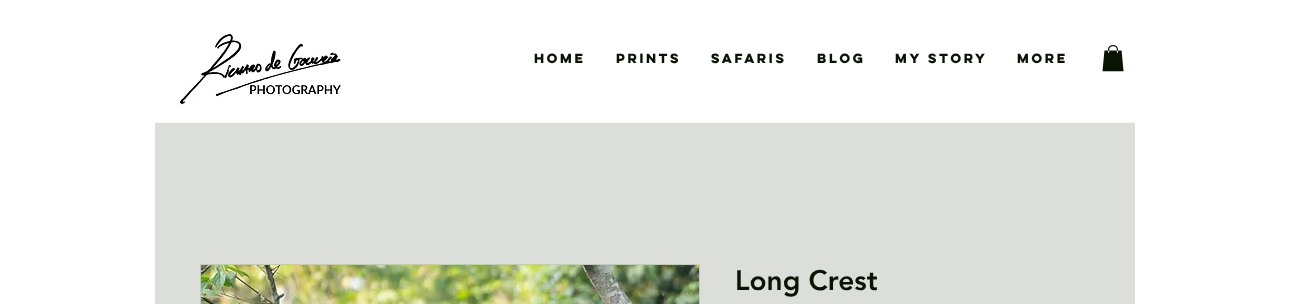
<!DOCTYPE html>
<meta charset="utf-8">
<style>body { margin: 0 } canvas { display: block }</style>
<canvas id="canvas" width="1289" height="304"></canvas>
<img id="img1" src="images/1.png" hidden>
<img id="img2" src="images/2.png" hidden>
<img id="img3" src="images/3.png" hidden>
<script>
window.onload = function () {
    const canvas = document.getElementById('canvas');
    const context = canvas.getContext('2d');
    context.miterLimit = 4;
    context.fontKerning = 'normal';

    context.fillStyle = 'rgb(255, 255, 255)';
    context.fillRect(0, 0, 1289, 304);
    context.drawImage(document.getElementById('img1'), 179, 31, 164, 75);
    context.drawImage(document.getElementById('img2'), 1102, 45, 22, 27);
    context.fillStyle = 'rgb(246, 249, 245)';
    context.fillRect(155, 122, 980, 1);
    context.fillStyle = 'rgb(220, 222, 218)';
    context.fillRect(155, 123, 980, 181);
    context.strokeStyle = 'rgb(197, 199, 196)';
    context.strokeRect(200.5, 264.5, 499, 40);
    context.drawImage(document.getElementById('img3'), 201, 265, 498, 39);
    context.font = 'bold 12px "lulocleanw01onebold"';
    context.fillStyle = 'rgb(9, 20, 5)';
    context.fillText('Home', 534, 63);
    context.fillText('Prints', 616, 63);
    context.fillText('Safaris', 711, 63);
    context.fillText('Blog', 817, 63);
    context.fillText('My Story', 895, 63);
    context.fillText('More', 1017, 63);
    context.font = '900 28px "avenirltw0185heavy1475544"';
    context.fillText('Long Crest', 735, 290);
};
</script>
